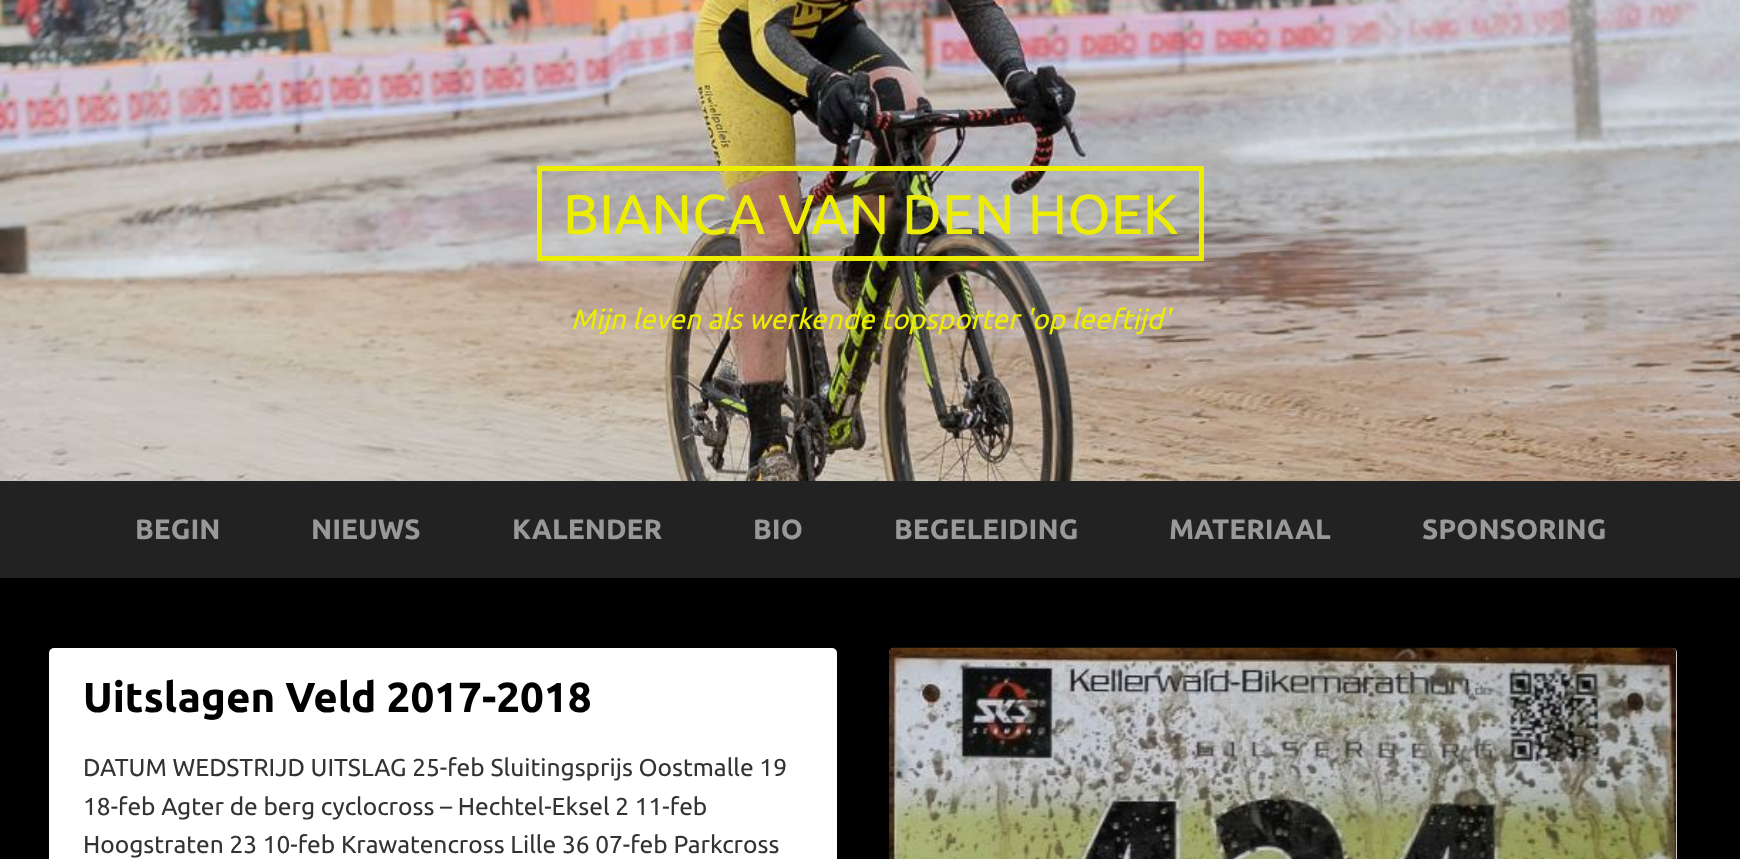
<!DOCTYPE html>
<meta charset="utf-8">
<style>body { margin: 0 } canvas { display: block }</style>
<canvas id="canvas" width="1740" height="859"></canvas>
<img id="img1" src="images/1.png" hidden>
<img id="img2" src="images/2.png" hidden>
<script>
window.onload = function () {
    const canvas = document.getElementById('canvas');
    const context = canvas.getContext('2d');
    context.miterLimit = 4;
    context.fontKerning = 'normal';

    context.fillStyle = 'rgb(0, 0, 0)';
    context.fillRect(0, 0, 1740, 859);
    context.drawImage(document.getElementById('img1'), 0, 0, 1740, 481);
    context.strokeStyle = 'rgb(237, 237, 2)';
    context.lineWidth = 5;
    context.strokeRect(539.5, 168.5, 662, 90);
    context.fillStyle = 'rgb(34, 34, 34)';
    context.fillRect(0, 481, 1740, 97);
    context.fillStyle = 'rgb(255, 255, 255)';
    context.beginPath();
    context.roundRect(49, 648, 788, 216, 5);
    context.fill();
    context.beginPath();
    context.roundRect(889, 648, 788, 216, 5);
    context.fill();
    context.drawImage(document.getElementById('img2'), 889, 647, 788, 212);
    context.font = '56px Ubuntu';
    context.fillStyle = 'rgb(237, 237, 2)';
    context.fillText('BIANCA VAN DEN HOEK', 563, 234);
    context.font = 'italic 28px Ubuntu';
    context.fillText('Mijn leven als werkende topsporter \'op leeftijd\'', 571, 329);
    context.font = 'bold 28px Ubuntu';
    context.fillStyle = 'rgb(153, 153, 153)';
    context.fillText('BEGIN', 135, 539);
    context.fillText('NIEUWS', 311, 539);
    context.fillText('KALENDER', 512, 539);
    context.fillText('BIO', 753, 539);
    context.fillText('BEGELEIDING', 894, 539);
    context.fillText('MATERIAAL', 1169, 539);
    context.fillText('SPONSORING', 1422, 539);
    context.font = 'bold 42px Ubuntu';
    context.fillStyle = 'rgb(0, 0, 0)';
    context.fillText('Uitslagen Veld 2017-2018', 83, 712);
    context.font = '24.5px Ubuntu';
    context.fillStyle = 'rgb(51, 51, 51)';
    context.fillText('DATUM WEDSTRIJD UITSLAG 25-feb Sluitingsprijs Oostmalle 19', 83, 776);
    context.fillText('18-feb Agter de berg cyclocross – Hechtel-Eksel 2 11-feb', 83, 815);
    context.fillText('Hoogstraten 23 10-feb Krawatencross Lille 36 07-feb Parkcross', 83, 853);
};
</script>
